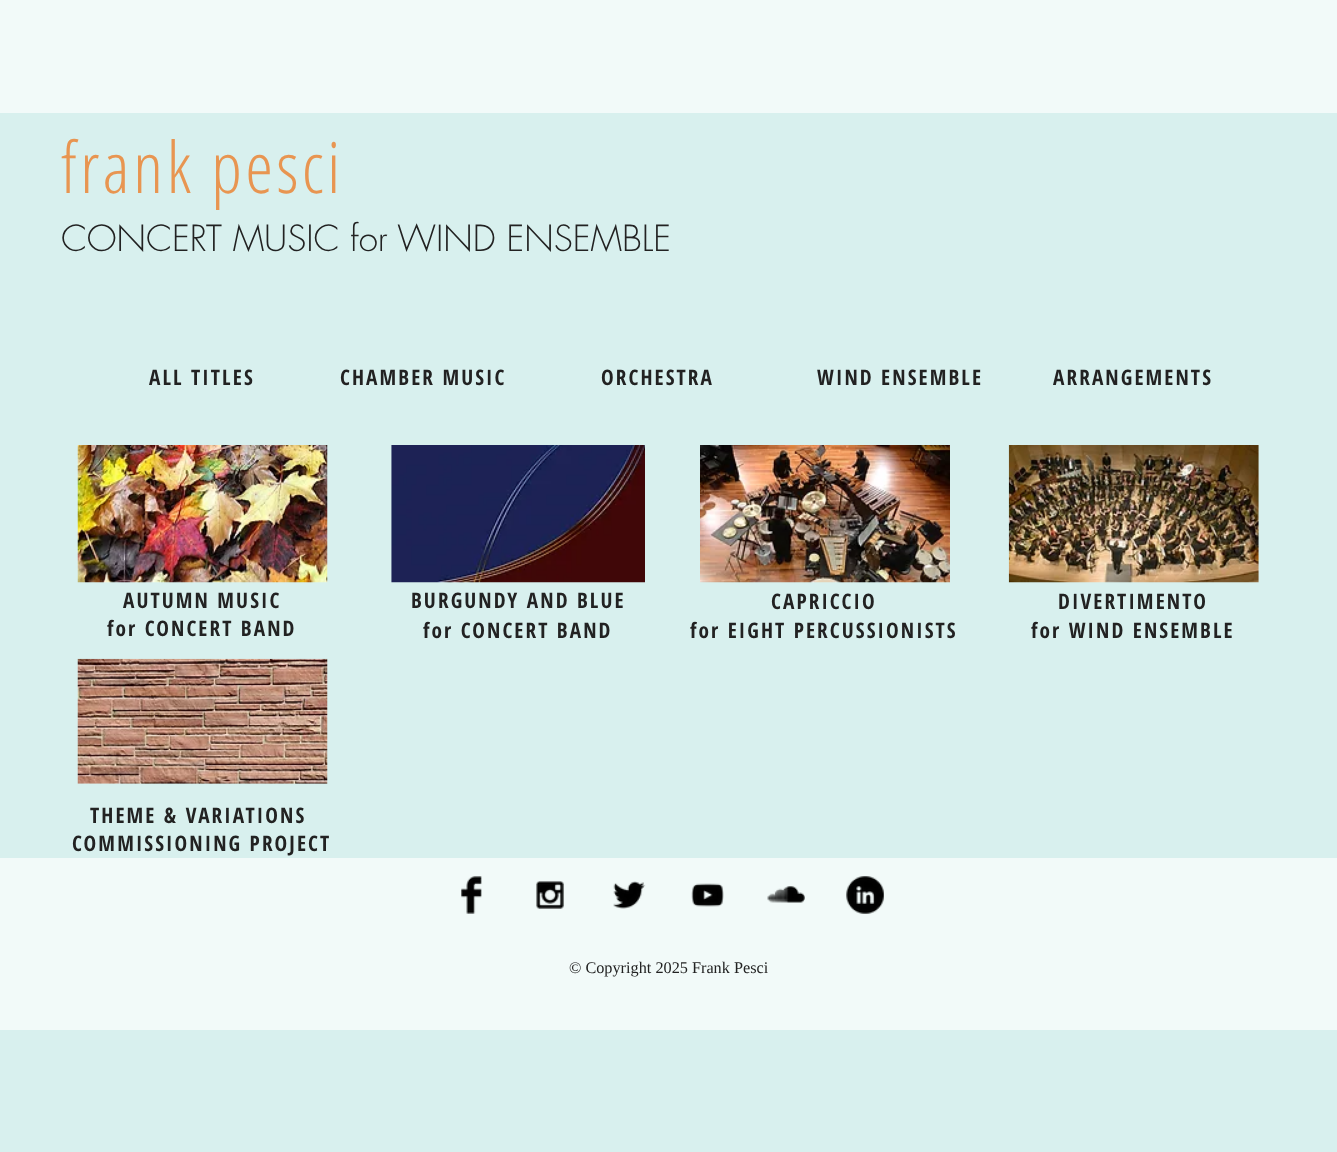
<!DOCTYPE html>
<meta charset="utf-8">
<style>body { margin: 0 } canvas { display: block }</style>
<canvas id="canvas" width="1337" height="1152"></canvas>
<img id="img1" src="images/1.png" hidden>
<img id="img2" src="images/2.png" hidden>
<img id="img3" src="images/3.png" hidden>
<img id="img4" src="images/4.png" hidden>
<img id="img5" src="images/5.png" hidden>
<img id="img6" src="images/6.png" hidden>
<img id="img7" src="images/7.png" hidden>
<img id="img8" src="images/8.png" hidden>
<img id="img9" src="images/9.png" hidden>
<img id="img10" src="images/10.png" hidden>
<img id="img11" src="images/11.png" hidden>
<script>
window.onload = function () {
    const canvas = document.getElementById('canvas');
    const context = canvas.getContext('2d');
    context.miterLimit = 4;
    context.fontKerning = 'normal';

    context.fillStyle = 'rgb(216, 240, 238)';
    context.fillRect(0, 0, 1337, 1152);
    context.fillStyle = 'rgb(242, 250, 249)';
    context.fillRect(0, 0, 1337, 113);
    context.drawImage(document.getElementById('img1'), 77, 445, 251, 138);
    context.drawImage(document.getElementById('img2'), 391, 445, 254, 138);
    context.drawImage(document.getElementById('img3'), 700, 445, 250, 138);
    context.drawImage(document.getElementById('img4'), 1008, 445, 251, 138);
    context.drawImage(document.getElementById('img5'), 77, 658, 251, 126);
    context.fillRect(0, 858, 1337, 172);
    context.drawImage(document.getElementById('img6'), 461, 876, 21, 38);
    context.drawImage(document.getElementById('img7'), 536, 881, 28, 28);
    context.drawImage(document.getElementById('img8'), 613, 881, 33, 28);
    context.drawImage(document.getElementById('img9'), 691, 883, 33, 24);
    context.drawImage(document.getElementById('img10'), 767, 886, 38, 17);
    context.drawImage(document.getElementById('img11'), 846, 876, 38, 38);
    context.letterSpacing = '3.25px';
    context.font = '300 71px Open Sans Condensed';
    context.fillStyle = 'rgb(232, 149, 81)';
    context.fillText('frank pesci', 61, 193);
    context.letterSpacing = '0px';
    context.font = '300 35px futura';
    context.fillStyle = 'rgb(34, 34, 34)';
    context.fillText('CONCERT MUSIC for WIND ENSEMBLE', 61, 251);
    context.letterSpacing = '2.1px';
    context.font = 'bold 21.25px Open Sans Condensed';
    context.fillText('ALL TITLES', 149, 385);
    context.fillText('CHAMBER MUSIC', 340, 385);
    context.fillText('ORCHESTRA', 601, 385);
    context.fillText('WIND ENSEMBLE', 817, 385);
    context.fillText('ARRANGEMENTS', 1053, 385);
    context.fillText('AUTUMN MUSIC', 123, 608);
    context.fillText('for CONCERT BAND', 107, 636);
    context.fillText('BURGUNDY AND BLUE', 411, 608);
    context.fillText('for CONCERT BAND', 423, 638);
    context.fillText('CAPRICCIO', 771, 609);
    context.fillText('for EIGHT PERCUSSIONISTS', 690, 638);
    context.fillText('DIVERTIMENTO', 1058, 609);
    context.fillText('for WIND ENSEMBLE', 1031, 638);
    context.fillText('THEME & VARIATIONS', 90, 823);
    context.fillText('COMMISSIONING PROJECT', 72, 851);
    context.letterSpacing = '0px';
    context.font = '16.25px Liberation Serif';
    context.fillText('© Copyright 2025 Frank Pesci', 569, 973);
};
</script>
